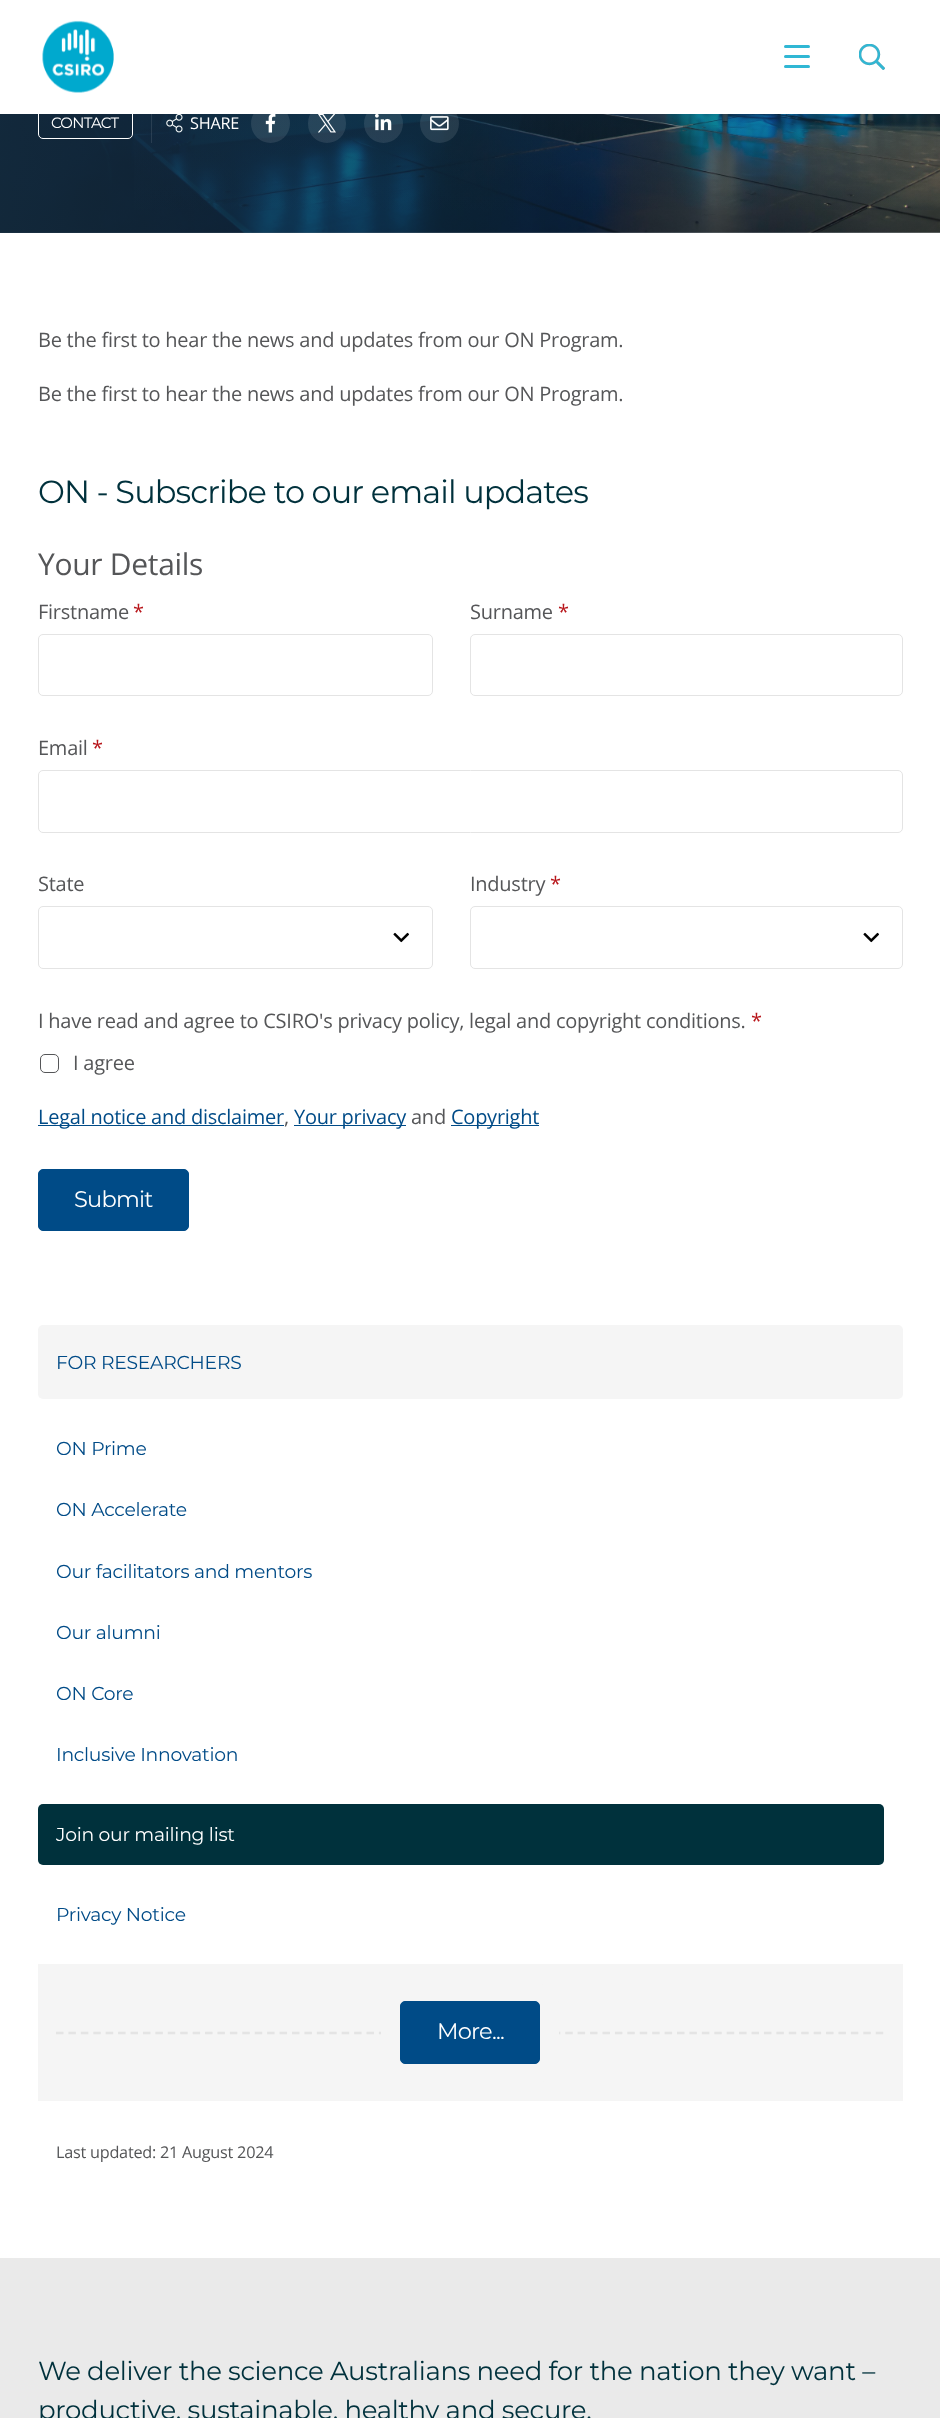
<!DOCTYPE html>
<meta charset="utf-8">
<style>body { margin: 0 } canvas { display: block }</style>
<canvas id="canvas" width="940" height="2418"></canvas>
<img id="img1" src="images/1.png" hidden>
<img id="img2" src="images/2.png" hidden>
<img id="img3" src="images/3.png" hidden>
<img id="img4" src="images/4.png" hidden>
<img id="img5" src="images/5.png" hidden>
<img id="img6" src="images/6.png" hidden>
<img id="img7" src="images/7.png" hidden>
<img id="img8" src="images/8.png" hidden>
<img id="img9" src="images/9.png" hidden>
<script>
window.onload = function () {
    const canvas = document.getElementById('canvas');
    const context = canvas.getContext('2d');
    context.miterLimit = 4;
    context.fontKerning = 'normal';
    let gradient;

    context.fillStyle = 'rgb(255, 255, 255)';
    context.fillRect(0, 0, 940, 2418);
    context.drawImage(document.getElementById('img1'), 42, 20, 72, 73);
    context.fillStyle = 'rgb(48, 183, 212)';
    context.beginPath();
    context.roundRect(784, 55, 26, 3, 1.5);
    context.fill();
    context.beginPath();
    context.roundRect(784, 45, 26, 3, 1.5);
    context.fill();
    context.beginPath();
    context.roundRect(784, 65, 26, 3, 1.5);
    context.fill();
    context.drawImage(document.getElementById('img2'), 859, 44, 26, 26);
    context.drawImage(document.getElementById('img3'), 0, 114, 940, 119);
    gradient = context.createLinearGradient(0, -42, 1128, -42);
    gradient.addColorStop(0, 'rgba(20, 44, 63, 0.9)');
    gradient.addColorStop(1, 'rgba(20, 44, 63, 0)');
    context.fillStyle = gradient;
    context.fillRect(0, 114, 940, 119);
    gradient = context.createLinearGradient(470, 233, 470, -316);
    gradient.addColorStop(0, 'rgba(20, 44, 63, 0)');
    gradient.addColorStop(0.7, 'rgba(20, 44, 63, 0.9)');
    context.fillStyle = gradient;
    context.fillRect(134, 114, 806, 96);
    context.beginPath();
    context.roundRect(38.5, 109.5, 94, 29, 4.5);
    context.strokeStyle = 'rgb(255, 255, 255)';
    context.stroke();
    context.fillStyle = 'rgba(255, 255, 255, 0.1)';
    context.fillRect(151, 114, 1, 29);
    context.drawImage(document.getElementById('img4'), 166, 114, 17, 19);
    context.beginPath();
    context.arc(270.5, 123.5, 19.5, 0, 2 * Math.PI);
    context.fill();
    context.drawImage(document.getElementById('img5'), 265, 114, 11, 19);
    context.beginPath();
    context.roundRect(308, 104, 38, 39, 19);
    context.fill();
    context.drawImage(document.getElementById('img6'), 318, 114, 18, 19);
    context.beginPath();
    context.arc(383.5, 123.5, 19.5, 0, 2 * Math.PI);
    context.fill();
    context.drawImage(document.getElementById('img7'), 375, 114, 17, 17);
    context.beginPath();
    context.arc(439.5, 123.5, 19.5, 0, 2 * Math.PI);
    context.fill();
    context.drawImage(document.getElementById('img8'), 430, 116, 19, 15);
    context.beginPath();
    context.roundRect(38.5, 634.5, 394, 61, 4.5);
    context.strokeStyle = 'rgb(228, 228, 228)';
    context.stroke();
    context.beginPath();
    context.roundRect(470.5, 634.5, 432, 61, 4.5);
    context.stroke();
    context.beginPath();
    context.roundRect(38.5, 770.5, 864, 62, 4.5);
    context.stroke();
    context.drawImage(document.getElementById('img9'), 393, 932, 16, 11);
    context.beginPath();
    context.roundRect(38.5, 906.5, 394, 62, 4.5);
    context.stroke();
    context.drawImage(document.getElementById('img9'), 863, 932, 16, 11);
    context.beginPath();
    context.roundRect(470.5, 906.5, 432, 62, 4.5);
    context.stroke();
    context.beginPath();
    context.roundRect(40.5, 1054.5, 18, 18, 4.5);
    context.strokeStyle = 'rgb(85, 86, 88)';
    context.stroke();
    context.fillStyle = 'rgb(0, 75, 135)';
    context.fillRect(38, 1125, 246, 1);
    context.fillRect(294, 1125, 112, 1);
    context.fillRect(451, 1125, 88, 1);
    context.beginPath();
    context.roundRect(38.5, 1169.5, 150, 61, 4.5);
    context.fill();
    context.strokeStyle = 'rgb(0, 75, 135)';
    context.stroke();
    context.fillStyle = 'rgb(245, 245, 245)';
    context.beginPath();
    context.roundRect(38, 1325, 865, 74, 5);
    context.fill();
    context.fillStyle = 'rgb(0, 49, 60)';
    context.beginPath();
    context.roundRect(38, 1804, 846, 61, 5);
    context.fill();
    context.fillStyle = 'rgb(245, 245, 245)';
    context.fillRect(38, 1964, 865, 137);
    context.beginPath();
    context.moveTo(56, 2033);
    context.lineTo(884, 2033);
    context.strokeStyle = 'rgb(228, 228, 228)';
    context.lineWidth = 2.5;
    context.setLineDash([7.5, 4.92]);
    context.stroke();
    context.beginPath();
    context.roundRect(390.5, 1992.5, 159, 81, 14.5);
    context.strokeStyle = 'rgb(245, 245, 245)';
    context.lineWidth = 19;
    context.setLineDash([]);
    context.stroke();
    context.fillStyle = 'rgb(0, 75, 135)';
    context.beginPath();
    context.roundRect(400.5, 2001.5, 139, 62, 4.5);
    context.fill();
    context.strokeStyle = 'rgb(0, 75, 135)';
    context.lineWidth = 1;
    context.stroke();
    context.fillStyle = 'rgb(234, 234, 234)';
    context.fillRect(0, 2258, 940, 160);
    context.letterSpacing = '-0.75px';
    context.font = '15px Montserrat';
    context.fillStyle = 'rgb(255, 255, 255)';
    context.fillText('CONTACT', 51, 128);
    context.letterSpacing = '-0.25px';
    context.font = '16.25px Open Sans';
    context.fillText('SHARE', 190, 129);
    context.font = '20px Open Sans';
    context.fillStyle = 'rgb(85, 86, 88)';
    context.fillText('Be the first to hear the news and updates from our ON Program.', 38, 347);
    context.fillText('Be the first to hear the news and updates from our ON Program.', 38, 401);
    context.letterSpacing = '-0.9px';
    context.font = '32px Montserrat';
    context.fillStyle = 'rgb(0, 49, 60)';
    context.fillText('ON - Subscribe to our email updates', 38, 503);
    context.letterSpacing = '-0.3px';
    context.font = '30px Open Sans';
    context.fillStyle = 'rgb(85, 86, 88)';
    context.fillText('Your Details', 38, 575);
    context.letterSpacing = '-0.25px';
    context.font = '20px Open Sans';
    context.fillText('Firstname', 38, 619);
    context.fillStyle = 'rgb(184, 22, 27)';
    context.fillText('*', 133, 619);
    context.fillStyle = 'rgb(85, 86, 88)';
    context.fillText('Surname', 470, 619);
    context.fillStyle = 'rgb(184, 22, 27)';
    context.fillText('*', 558, 619);
    context.fillStyle = 'rgb(85, 86, 88)';
    context.fillText('Email', 38, 755);
    context.fillStyle = 'rgb(184, 22, 27)';
    context.fillText('*', 92, 755);
    context.fillStyle = 'rgb(85, 86, 88)';
    context.fillText('State', 38, 891);
    context.fillText('Industry', 470, 891);
    context.fillStyle = 'rgb(184, 22, 27)';
    context.fillText('*', 550, 891);
    context.fillStyle = 'rgb(85, 86, 88)';
    context.fillText('I have read and agree to CSIRO\'s privacy policy, legal and copyright conditions.', 38, 1028);
    context.fillStyle = 'rgb(184, 22, 27)';
    context.fillText('*', 751, 1028);
    context.fillStyle = 'rgb(85, 86, 88)';
    context.fillText('I agree', 73, 1070);
    context.fillStyle = 'rgb(0, 75, 135)';
    context.fillText('Legal notice and disclaimer', 38, 1124);
    context.fillStyle = 'rgb(85, 86, 88)';
    context.fillText(',', 284, 1124);
    context.fillStyle = 'rgb(0, 75, 135)';
    context.fillText('Your privacy', 294, 1124);
    context.fillStyle = 'rgb(85, 86, 88)';
    context.fillText('and', 411, 1124);
    context.fillStyle = 'rgb(0, 75, 135)';
    context.fillText('Copyright', 451, 1124);
    context.letterSpacing = '-0.75px';
    context.font = '22.5px Montserrat';
    context.fillStyle = 'rgb(255, 255, 255)';
    context.fillText('Submit', 74, 1207);
    context.letterSpacing = '-0.25px';
    context.font = '18.75px Montserrat';
    context.fillStyle = 'rgb(0, 75, 135)';
    context.fillText('FOR RESEARCHERS', 56, 1369);
    context.fillText('ON Prime', 56, 1455);
    context.fillText('ON Accelerate', 56, 1516);
    context.fillText('Our facilitators and mentors', 56, 1578);
    context.fillText('Our alumni', 56, 1639);
    context.fillText('ON Core', 56, 1700);
    context.fillText('Inclusive Innovation', 56, 1761);
    context.fillStyle = 'rgb(255, 255, 255)';
    context.fillText('Join our mailing list', 56, 1841);
    context.fillStyle = 'rgb(0, 75, 135)';
    context.fillText('Privacy Notice', 56, 1921);
    context.letterSpacing = '-0.75px';
    context.font = '22.5px Montserrat';
    context.fillStyle = 'rgb(255, 255, 255)';
    context.fillText('More...', 437, 2039);
    context.letterSpacing = '-0.25px';
    context.font = '16.25px Open Sans';
    context.fillStyle = 'rgb(85, 86, 88)';
    context.fillText('Last updated: 21 August 2024', 56, 2158);
    context.letterSpacing = '-0.3px';
    context.font = '26px Montserrat';
    context.fillStyle = 'rgb(0, 49, 60)';
    context.fillText('We deliver the science Australians need for the nation they want –', 38, 2380);
    context.fillText('productive, sustainable, healthy and secure.', 38, 2419);
};
</script>
